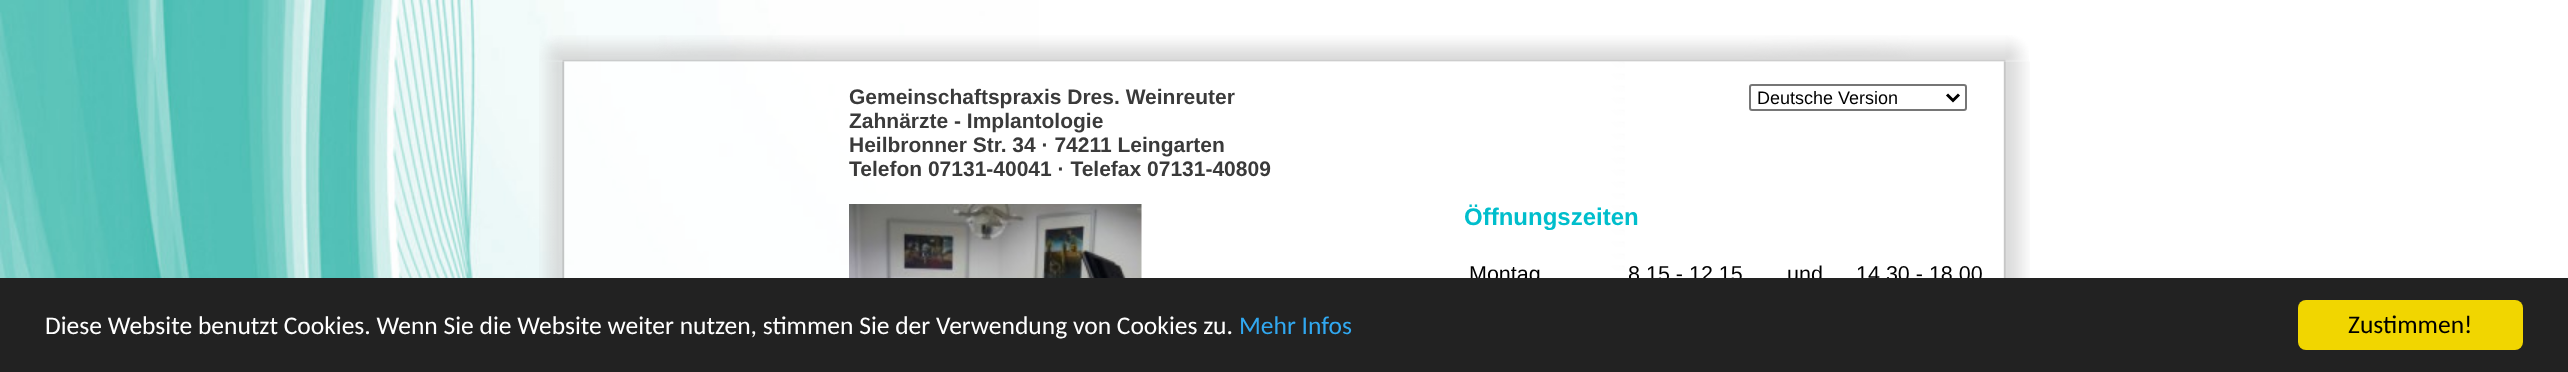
<!DOCTYPE html>
<meta charset="utf-8">
<style>body { margin: 0 } canvas { display: block }</style>
<canvas id="canvas" width="2568" height="372"></canvas>
<img id="img1" src="images/1.png" hidden>
<img id="img2" src="images/2.png" hidden>
<img id="img3" src="images/3.png" hidden>
<img id="img4" src="images/4.png" hidden>
<script>
window.onload = function () {
    const canvas = document.getElementById('canvas');
    const context = canvas.getContext('2d');
    context.miterLimit = 4;
    context.fontKerning = 'normal';

    context.fillStyle = 'rgb(255, 255, 255)';
    context.fillRect(0, 0, 2568, 372);
    context.drawImage(document.getElementById('img1'), 0, 0, 1039, 278);
    context.drawImage(document.getElementById('img2'), 539, 35, 1490, 27);
    context.drawImage(document.getElementById('img3'), 539, 61, 1491, 217);
    context.beginPath();
    context.roundRect(1750, 85, 216, 25, 2);
    context.strokeStyle = 'rgb(118, 118, 118)';
    context.lineWidth = 2;
    context.stroke();
    context.beginPath();
    context.moveTo(1947, 94.5);
    context.lineTo(1953, 100.5);
    context.lineTo(1959, 94.5);
    context.strokeStyle = 'rgb(0, 0, 0)';
    context.lineWidth = 3;
    context.stroke();
    context.drawImage(document.getElementById('img4'), 849, 204, 293, 74);
    context.font = 'bold 21px Liberation Sans';
    context.fillStyle = 'rgb(58, 58, 58)';
    context.fillText('Gemeinschaftspraxis Dres. Weinreuter', 849, 104);
    context.fillText('Zahnärzte - Implantologie', 849, 128);
    context.fillText('Heilbronner Str. 34 · 74211 Leingarten', 849, 152);
    context.fillText('Telefon 07131-40041 · Telefax 07131-40809', 849, 176);
    context.font = '18px Liberation Sans';
    context.fillStyle = 'rgb(0, 0, 0)';
    context.fillText('Deutsche Version', 1757, 104);
    context.font = 'bold 24px Liberation Sans';
    context.fillStyle = 'rgb(0, 190, 204)';
    context.fillText('Öffnungszeiten', 1464, 225);
    context.font = '21.5px Liberation Sans';
    context.fillStyle = 'rgb(0, 0, 0)';
    context.fillText('Montag', 1469, 281);
    context.fillText('8.15 - 12.15', 1628, 281);
    context.fillText('und', 1787, 281);
    context.fillText('14.30 - 18.00', 1856, 281);
    context.fillStyle = 'rgb(34, 34, 34)';
    context.fillRect(0, 278, 2568, 94);
    context.font = '25.5px Carlito';
    context.fillStyle = 'rgb(255, 255, 255)';
    context.fillText('Diese Website benutzt Cookies. Wenn Sie die Website weiter nutzen, stimmen Sie der Verwendung von Cookies zu.', 45, 334);
    context.fillStyle = 'rgb(49, 168, 240)';
    context.fillText('Mehr Infos', 1239, 334);
    context.fillStyle = 'rgb(241, 214, 0)';
    context.beginPath();
    context.roundRect(2298, 300, 225, 50, 8);
    context.fill();
    context.fillStyle = 'rgb(0, 0, 0)';
    context.fillText('Zustimmen!', 2348, 333);
};
</script>
